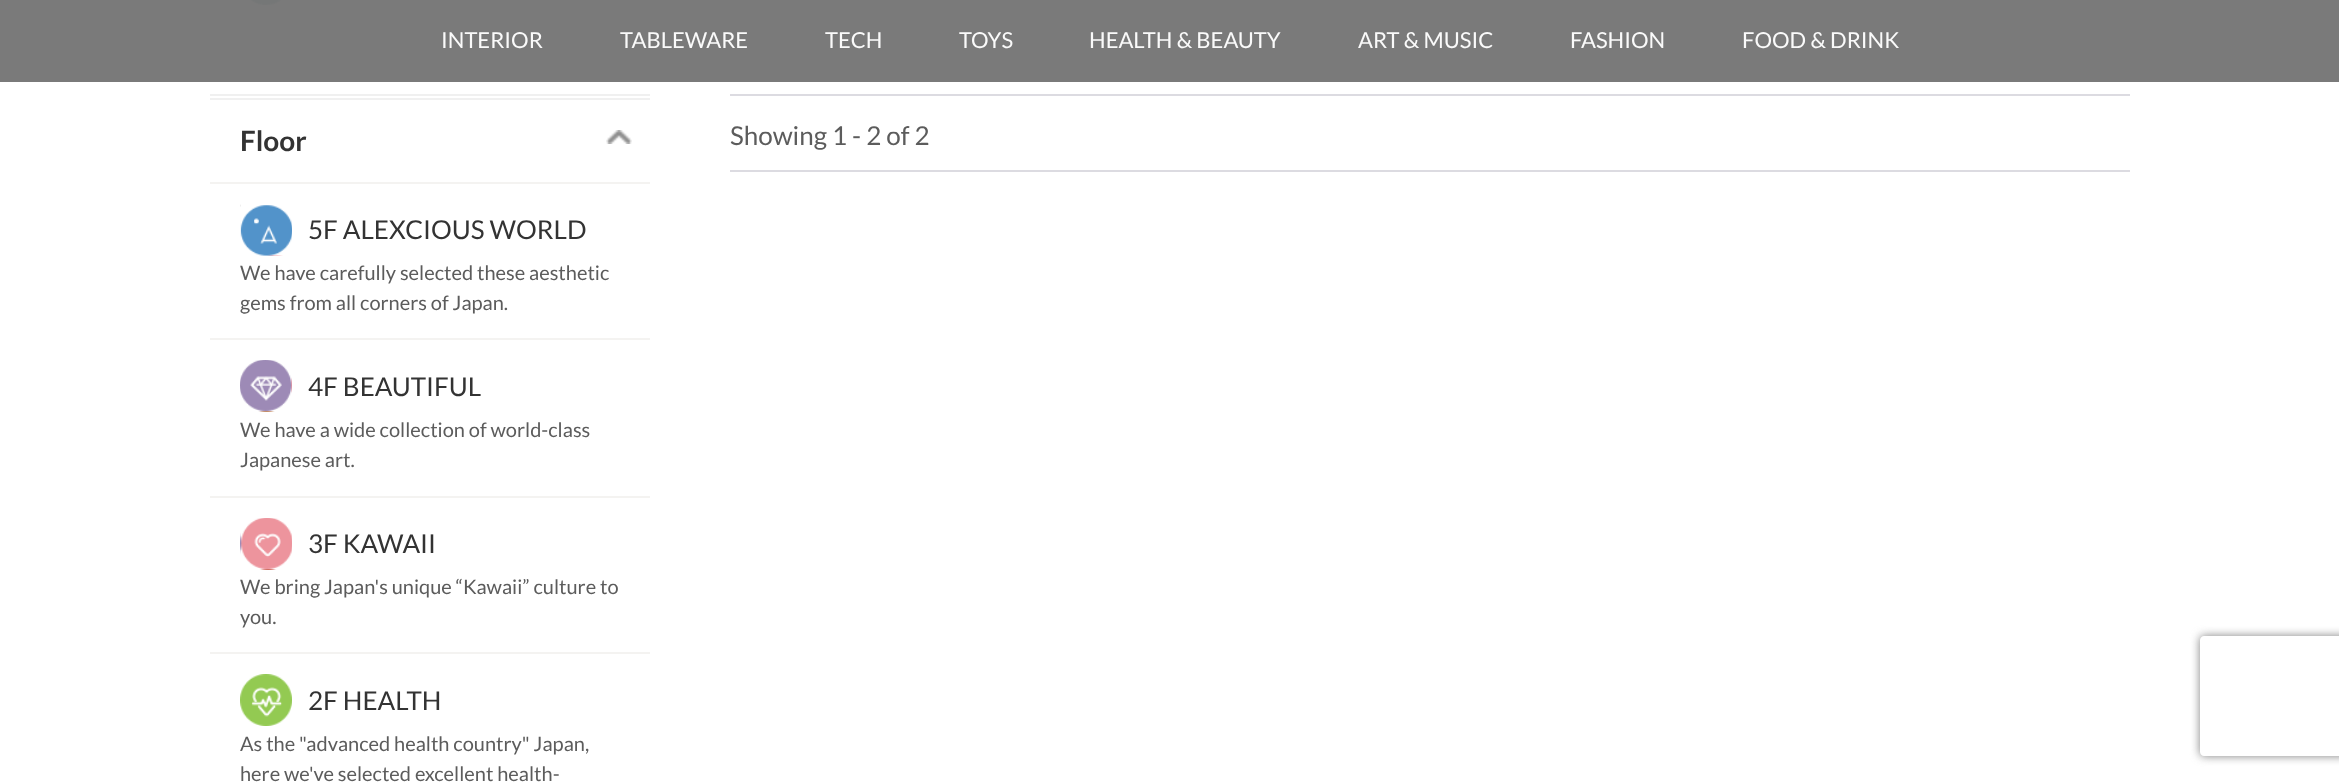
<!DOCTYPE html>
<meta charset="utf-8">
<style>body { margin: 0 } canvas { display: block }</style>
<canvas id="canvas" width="2339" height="783"></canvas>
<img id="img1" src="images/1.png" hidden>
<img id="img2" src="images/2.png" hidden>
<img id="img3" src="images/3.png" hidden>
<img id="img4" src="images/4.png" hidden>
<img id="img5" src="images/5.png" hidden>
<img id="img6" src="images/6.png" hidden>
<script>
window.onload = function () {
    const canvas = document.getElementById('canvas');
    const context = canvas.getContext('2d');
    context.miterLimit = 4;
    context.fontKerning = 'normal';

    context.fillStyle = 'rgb(255, 255, 255)';
    context.fillRect(0, 0, 2339, 783);
    context.fillStyle = 'rgb(122, 122, 122)';
    context.fillRect(0, 0, 2339, 82);
    context.drawImage(document.getElementById('img1'), 251, 0, 30, 5);
    context.fillStyle = 'rgb(240, 240, 240)';
    context.fillRect(210, 94, 440, 2);
    context.fillRect(210, 98, 440, 2);
    context.drawImage(document.getElementById('img2'), 606, 130, 26, 14);
    context.fillStyle = 'rgb(244, 243, 241)';
    context.fillRect(210, 182, 440, 2);
    context.drawImage(document.getElementById('img3'), 240, 204, 52, 52);
    context.fillRect(210, 338, 440, 2);
    context.drawImage(document.getElementById('img4'), 240, 360, 52, 52);
    context.fillRect(210, 496, 440, 2);
    context.drawImage(document.getElementById('img5'), 240, 518, 52, 52);
    context.fillRect(210, 652, 440, 2);
    context.drawImage(document.getElementById('img6'), 240, 674, 52, 52);
    context.fillStyle = 'rgb(220, 219, 225)';
    context.fillRect(730, 94, 1400, 2);
    context.fillRect(730, 170, 1400, 2);
    context.save();
    context.beginPath();
    context.moveTo(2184, 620);
    context.lineTo(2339, 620);
    context.lineTo(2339, 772);
    context.lineTo(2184, 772);
    context.closePath();
    context.moveTo(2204, 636);
    context.lineTo(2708, 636);
    context.bezierCurveTo(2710, 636, 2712, 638, 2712, 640);
    context.lineTo(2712, 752);
    context.bezierCurveTo(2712, 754, 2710, 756, 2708, 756);
    context.lineTo(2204, 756);
    context.bezierCurveTo(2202, 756, 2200, 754, 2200, 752);
    context.lineTo(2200, 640);
    context.bezierCurveTo(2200, 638, 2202, 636, 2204, 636);
    context.closePath();
    context.clip('evenodd');
    context.fillStyle = 'rgb(128, 128, 128)';
    context.filter = 'blur(5px)';
    context.beginPath();
    context.roundRect(2200, 636, 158, 120, 4);
    context.fill();
    context.filter = 'none';
    context.restore();
    context.font = '22px Lato';
    context.fillStyle = 'rgb(250, 250, 250)';
    context.fillText('INTERIOR', 441, 48);
    context.fillText('TABLEWARE', 620, 48);
    context.fillText('TECH', 825, 48);
    context.fillText('TOYS', 959, 48);
    context.fillText('HEALTH & BEAUTY', 1089, 48);
    context.fillText('ART & MUSIC', 1358, 48);
    context.fillText('FASHION', 1570, 48);
    context.fillText('FOOD & DRINK', 1742, 48);
    context.font = 'bold 28px Lato';
    context.fillStyle = 'rgb(51, 51, 51)';
    context.fillText('Floor', 240, 151);
    context.font = '26px Lato';
    context.fillText('5F ALEXCIOUS WORLD', 308, 239);
    context.font = '20px Lato';
    context.fillStyle = 'rgb(92, 92, 92)';
    context.fillText('We have carefully selected these aesthetic', 240, 280);
    context.fillText('gems from all corners of Japan.', 240, 310);
    context.font = '26px Lato';
    context.fillStyle = 'rgb(51, 51, 51)';
    context.fillText('4F BEAUTIFUL', 308, 396);
    context.font = '20px Lato';
    context.fillStyle = 'rgb(92, 92, 92)';
    context.fillText('We have a wide collection of world-class', 240, 437);
    context.fillText('Japanese art.', 240, 467);
    context.font = '26px Lato';
    context.fillStyle = 'rgb(51, 51, 51)';
    context.fillText('3F KAWAII', 308, 553);
    context.font = '20px Lato';
    context.fillStyle = 'rgb(92, 92, 92)';
    context.fillText('We bring Japan\'s unique “Kawaii” culture to', 240, 594);
    context.fillText('you.', 240, 624);
    context.font = '26px Lato';
    context.fillStyle = 'rgb(51, 51, 51)';
    context.fillText('2F HEALTH', 308, 710);
    context.font = '20px Lato';
    context.fillStyle = 'rgb(92, 92, 92)';
    context.fillText('As the "advanced health country" Japan,', 240, 751);
    context.fillText('here we\'ve selected excellent health-', 240, 781);
    context.font = '26px Lato';
    context.fillText('Showing 1 - 2 of 2', 730, 145);
};
</script>
